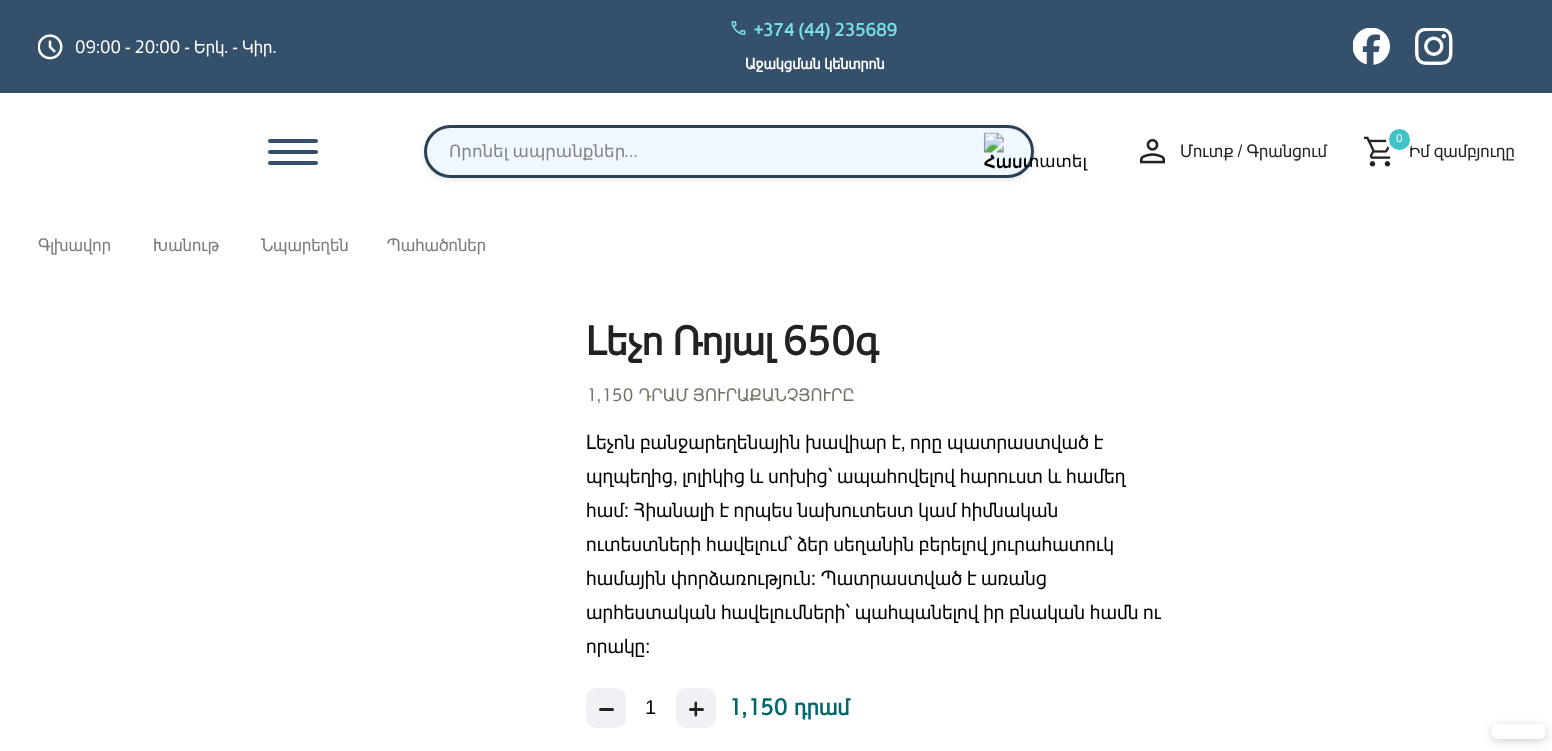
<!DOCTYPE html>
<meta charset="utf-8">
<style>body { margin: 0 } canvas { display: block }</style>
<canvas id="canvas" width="1552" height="751"></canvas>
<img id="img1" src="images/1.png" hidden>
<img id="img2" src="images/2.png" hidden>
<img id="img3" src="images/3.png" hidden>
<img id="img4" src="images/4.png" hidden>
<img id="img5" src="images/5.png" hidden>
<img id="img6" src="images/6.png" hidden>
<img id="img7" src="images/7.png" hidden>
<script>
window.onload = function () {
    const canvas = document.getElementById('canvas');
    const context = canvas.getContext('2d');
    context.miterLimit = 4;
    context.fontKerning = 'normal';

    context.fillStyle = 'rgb(255, 255, 255)';
    context.fillRect(0, 0, 1552, 751);
    context.fillStyle = 'rgb(53, 80, 106)';
    context.fillRect(0, 0, 1552, 93);
    context.drawImage(document.getElementById('img1'), 38, 34, 25, 26);
    context.drawImage(document.getElementById('img2'), 731, 21, 15, 14);
    context.drawImage(document.getElementById('img3'), 1353, 28, 37, 37);
    context.drawImage(document.getElementById('img4'), 1415, 28, 38, 37);
    context.beginPath();
    context.roundRect(268, 139, 50, 4, 2);
    context.fill();
    context.beginPath();
    context.roundRect(268, 150, 50, 4, 2);
    context.fill();
    context.beginPath();
    context.roundRect(268, 161, 50, 4, 2);
    context.fill();
    context.fillStyle = 'rgba(0, 0, 0, 0.1)';
    context.filter = 'blur(3px)';
    context.beginPath();
    context.roundRect(424, 128, 610, 52, 26);
    context.fill();
    context.filter = 'none';
    context.fillStyle = 'rgb(240, 248, 255)';
    context.beginPath();
    context.roundRect(425.5, 126.5, 607, 50, 25);
    context.fill();
    context.strokeStyle = 'rgb(42, 64, 85)';
    context.lineWidth = 3;
    context.stroke();
    context.drawImage(document.getElementById('img5'), 983, 132, 44, 37);
    context.drawImage(document.getElementById('img6'), 1140, 139, 25, 25);
    context.drawImage(document.getElementById('img7'), 1364, 136, 27, 31);
    context.fillStyle = 'rgb(241, 241, 245)';
    context.beginPath();
    context.roundRect(586, 688, 40, 40, 10);
    context.fill();
    context.fillStyle = 'rgb(36, 36, 36)';
    context.beginPath();
    context.roundRect(599, 708, 15, 3, 1.5);
    context.fill();
    context.fillStyle = 'rgb(241, 241, 245)';
    context.beginPath();
    context.roundRect(676, 688, 40, 40, 10);
    context.fill();
    context.fillStyle = 'rgb(36, 36, 36)';
    context.beginPath();
    context.moveTo(694.5, 715.5);
    context.lineTo(694.5, 702.5);
    context.lineTo(695.5, 701.5);
    context.bezierCurveTo(697.5, 701, 697, 704, 697, 705);
    context.lineTo(697, 711);
    context.bezierCurveTo(697, 712, 698, 716.5, 696, 716.5);
    context.bezierCurveTo(695, 716.5, 694.5, 716, 694.5, 715.5);
    context.closePath();
    context.fill();
    context.beginPath();
    context.roundRect(689, 708, 15, 3, 1.5);
    context.fill();
    context.save();
    context.beginPath();
    context.moveTo(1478, 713);
    context.lineTo(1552, 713);
    context.lineTo(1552, 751);
    context.lineTo(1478, 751);
    context.closePath();
    context.moveTo(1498.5, 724);
    context.lineTo(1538.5, 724);
    context.bezierCurveTo(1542.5, 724, 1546, 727.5, 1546, 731.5);
    context.bezierCurveTo(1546, 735.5, 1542.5, 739, 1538.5, 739);
    context.lineTo(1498.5, 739);
    context.bezierCurveTo(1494.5, 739, 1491, 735.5, 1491, 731.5);
    context.bezierCurveTo(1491, 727.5, 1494.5, 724, 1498.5, 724);
    context.closePath();
    context.clip('evenodd');
    context.fillStyle = 'rgba(0, 0, 0, 0.2)';
    context.filter = 'blur(4px)';
    context.beginPath();
    context.roundRect(1491, 726, 55, 15, 7.5);
    context.fill();
    context.filter = 'none';
    context.restore();
    context.fillStyle = 'rgba(255, 255, 255, 0.9)';
    context.beginPath();
    context.roundRect(1491, 724, 55, 15, 7.5);
    context.fill();
    context.font = '17.5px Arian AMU';
    context.fillStyle = 'rgb(255, 255, 255)';
    context.fillText('09:00 - 20:00 - Երկ. - Կիր.', 75, 53);
    context.font = 'bold 17.5px Arian AMU';
    context.fillStyle = 'rgb(122, 224, 227)';
    context.fillText('+374 (44) 235689', 754, 36);
    context.font = 'bold 15px Arian AMU';
    context.fillStyle = 'rgb(255, 255, 255)';
    context.fillText('Աջակցման կենտրոն', 745, 69);
    context.wordSpacing = '-1px';
    context.font = '16.75px DejaVu Sans';
    context.fillStyle = 'rgb(130, 131, 133)';
    context.fillText('Որոնել ապրանքներ', 449, 157);
    context.wordSpacing = '0px';
    context.font = '16.75px Liberation Sans';
    context.fillText('...', 624, 157);
    context.font = '16.75px DejaVu Sans';
    context.fillStyle = 'rgb(0, 0, 0)';
    context.fillText('Հաստատել', 984, 167);
    context.font = '17.5px Arian AMU';
    context.fillStyle = 'rgb(34, 34, 34)';
    context.fillText('Մուտք / Գրանցում', 1180, 157);
    context.fillText('Իմ զամբյուղը', 1409, 157);
    context.fillStyle = 'rgb(64, 195, 198)';
    context.beginPath();
    context.arc(1399.5, 139.5, 12, 0, 2 * Math.PI);
    context.fill();
    context.strokeStyle = 'rgb(255, 255, 255)';
    context.stroke();
    context.font = '11px Arian AMU';
    context.fillStyle = 'rgb(255, 255, 255)';
    context.fillText('0', 1396, 142);
    context.font = '17.5px Arian AMU';
    context.fillStyle = 'rgb(122, 122, 122)';
    context.fillText('Գլխավոր', 38, 251);
    context.fillText('Խանութ', 153, 251);
    context.fillText('Նպարեղեն', 261, 251);
    context.fillText('Պահածոներ', 387, 251);
    context.font = 'bold 40px Arian AMU';
    context.fillStyle = 'rgb(34, 34, 34)';
    context.fillText('Լեչո Ռոյալ 650գ', 586, 355);
    context.letterSpacing = '0.3px';
    context.font = '17.5px Arian AMU';
    context.fillStyle = 'rgb(105, 117, 97)';
    context.fillText('1,150', 586, 401);
    context.fillText('ԴՐԱՄ ՅՈՒՐԱՔԱՆՉՅՈՒՐԸ', 639, 401);
    context.letterSpacing = '0px';
    context.font = '20px Arian AMU';
    context.fillStyle = 'rgb(0, 0, 0)';
    context.fillText('Լեչոն բանջարեղենային խավիար է, որը պատրաստված է', 586, 449);
    context.fillText('պղպեղից, լոլիկից և սոխից՝ ապահովելով հարուստ և համեղ', 586, 483);
    context.fillText('համ։ Հիանալի է որպես նախուտեստ կամ հիմնական', 586, 517);
    context.fillText('ուտեստների հավելում՝ ձեր սեղանին բերելով յուրահատուկ', 586, 551);
    context.fillText('համային փորձառություն։ Պատրաստված է առանց', 586, 585);
    context.fillText('արհեստական հավելումների՝ պահպանելով իր բնական համն ու', 586, 619);
    context.fillText('որակը։', 586, 653);
    context.font = '20px Liberation Sans';
    context.fillText('1', 645, 714);
    context.font = 'bold 22.5px Arian AMU';
    context.fillStyle = 'rgb(0, 103, 106)';
    context.fillText('1,150', 728, 715);
    context.fillText('դրամ', 794, 715);
};
</script>
